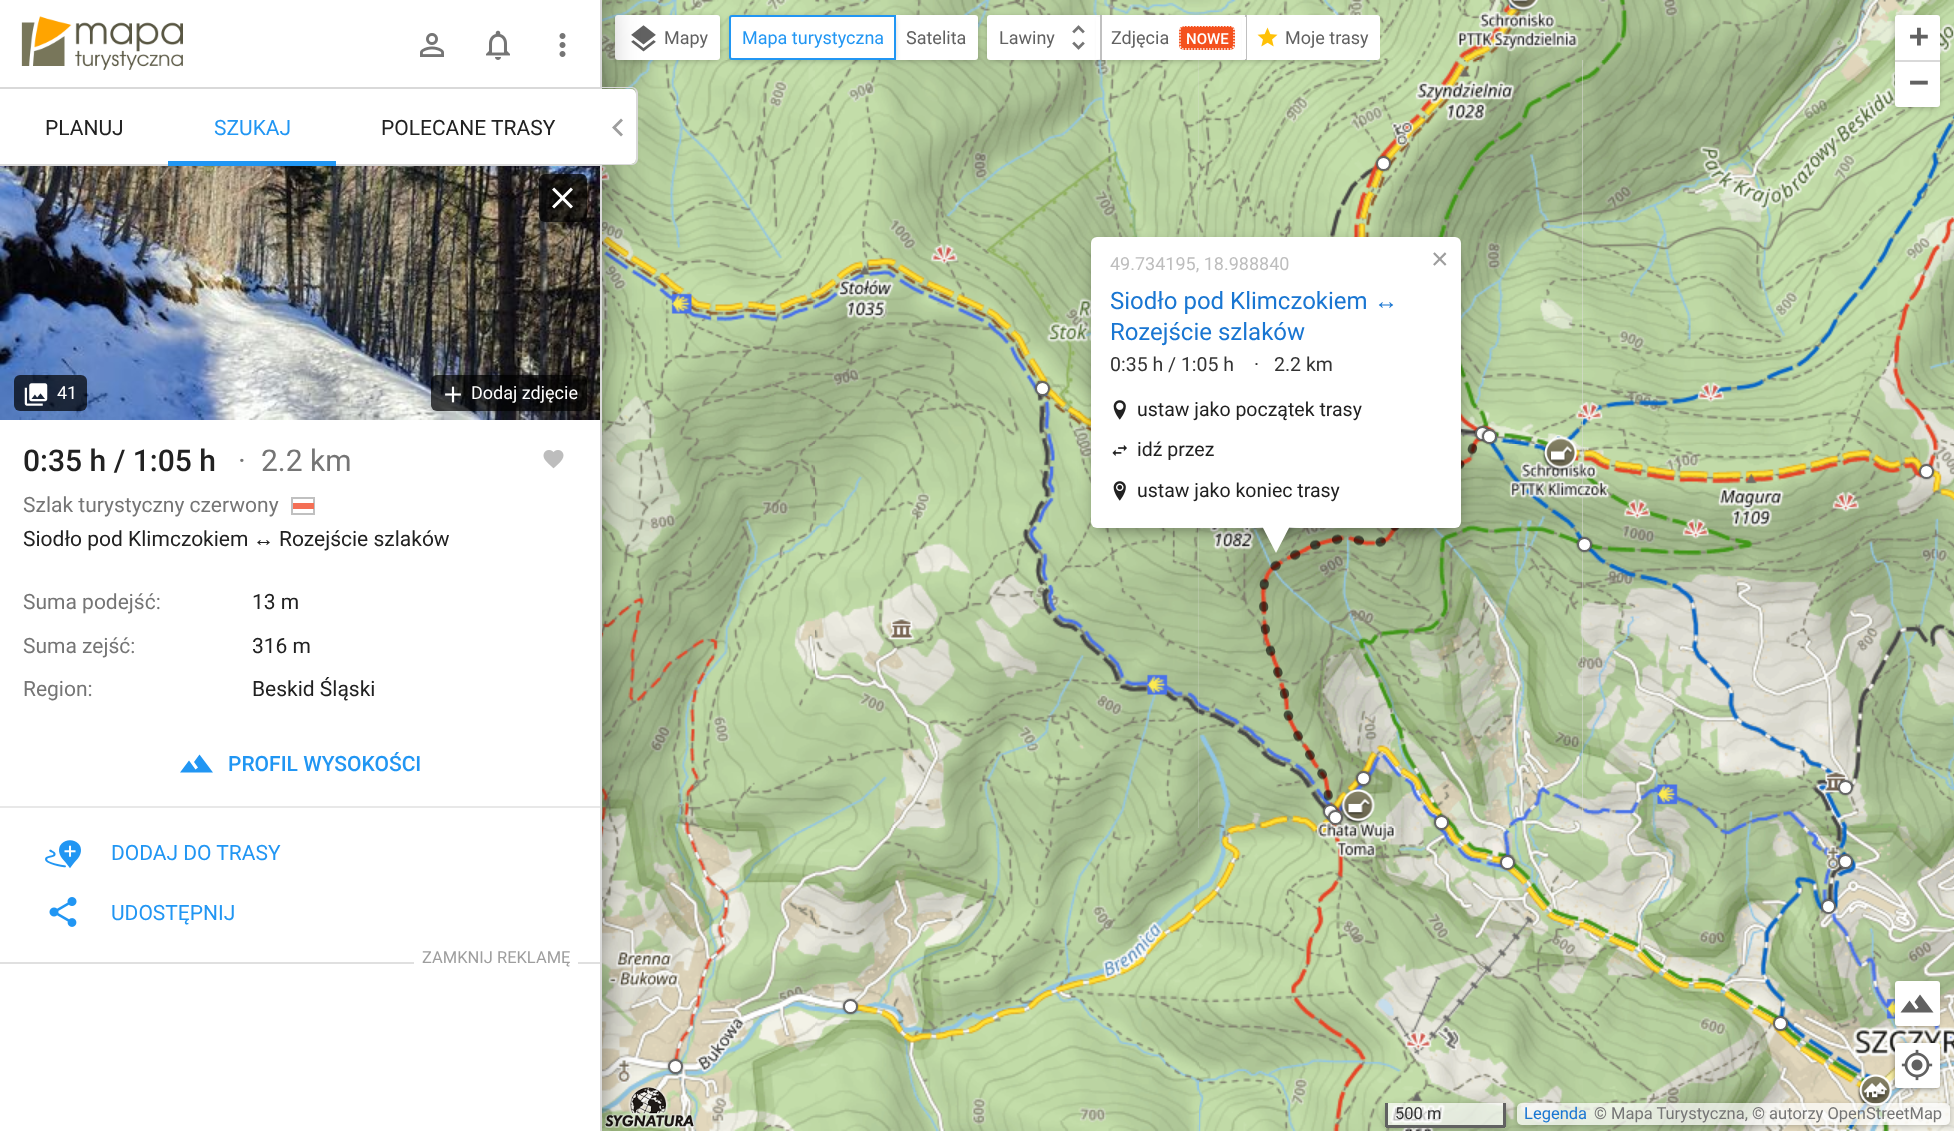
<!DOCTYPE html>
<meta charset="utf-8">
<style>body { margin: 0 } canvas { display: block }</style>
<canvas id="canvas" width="1954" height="1131"></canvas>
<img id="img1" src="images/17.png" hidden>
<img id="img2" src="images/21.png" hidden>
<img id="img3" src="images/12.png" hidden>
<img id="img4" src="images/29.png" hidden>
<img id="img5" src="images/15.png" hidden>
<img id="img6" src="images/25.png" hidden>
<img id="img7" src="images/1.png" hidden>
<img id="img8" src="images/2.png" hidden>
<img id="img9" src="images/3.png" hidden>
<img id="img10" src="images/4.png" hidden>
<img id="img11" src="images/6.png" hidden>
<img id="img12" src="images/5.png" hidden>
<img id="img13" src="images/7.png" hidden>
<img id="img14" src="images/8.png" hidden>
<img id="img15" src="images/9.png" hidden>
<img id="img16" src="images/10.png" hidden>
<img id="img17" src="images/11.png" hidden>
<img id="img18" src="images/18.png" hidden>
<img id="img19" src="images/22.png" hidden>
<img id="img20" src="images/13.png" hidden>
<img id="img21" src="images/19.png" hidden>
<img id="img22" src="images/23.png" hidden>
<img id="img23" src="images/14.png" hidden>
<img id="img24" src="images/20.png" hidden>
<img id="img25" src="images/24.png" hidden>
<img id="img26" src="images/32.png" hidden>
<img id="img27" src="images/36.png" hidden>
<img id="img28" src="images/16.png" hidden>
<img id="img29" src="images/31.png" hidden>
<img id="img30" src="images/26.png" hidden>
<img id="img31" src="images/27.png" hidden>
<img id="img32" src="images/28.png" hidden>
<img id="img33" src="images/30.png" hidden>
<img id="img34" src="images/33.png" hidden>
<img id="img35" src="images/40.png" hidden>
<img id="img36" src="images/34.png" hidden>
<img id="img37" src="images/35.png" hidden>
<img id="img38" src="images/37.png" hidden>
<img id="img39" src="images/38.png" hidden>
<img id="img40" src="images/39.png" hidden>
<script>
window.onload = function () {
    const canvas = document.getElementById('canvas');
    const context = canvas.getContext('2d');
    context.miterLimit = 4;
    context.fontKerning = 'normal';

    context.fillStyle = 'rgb(221, 221, 221)';
    context.fillRect(0, 0, 1954, 1131);
    context.drawImage(document.getElementById('img1'), 602, 0, 213, 60);
    context.drawImage(document.getElementById('img2'), 602, 60, 213, 384);
    context.fillStyle = 'rgba(0, 0, 0, 0.3)';
    context.filter = 'blur(3px)';
    context.beginPath();
    context.roundRect(617, 18, 102, 42, 1.5);
    context.fill();
    context.filter = 'none';
    context.fillStyle = 'rgb(255, 255, 255)';
    context.beginPath();
    context.roundRect(615, 15, 105, 45, 3);
    context.fill();
    context.drawImage(document.getElementById('img3'), 631, 25, 25, 27);
    context.drawImage(document.getElementById('img4'), 602, 828, 213, 303);
    context.drawImage(document.getElementById('img5'), 604, 1086, 92, 42);
    context.drawImage(document.getElementById('img6'), 602, 444, 213, 384);
    context.fillStyle = 'rgb(0, 0, 0)';
    context.filter = 'blur(22.5px)';
    context.beginPath();
    context.rect(-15, 0, 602, 1131);
    context.fill();
    context.filter = 'none';
    context.fillStyle = 'rgb(255, 255, 255)';
    context.fillRect(0, 0, 600, 1131);
    context.fillStyle = 'rgb(217, 217, 217)';
    context.fillRect(600, 0, 2, 1131);
    context.fillRect(0, 87, 600, 2);
    context.drawImage(document.getElementById('img7'), 21, 16, 162, 54);
    context.drawImage(document.getElementById('img8'), 420, 33, 24, 24);
    context.drawImage(document.getElementById('img9'), 486, 30, 24, 30);
    context.drawImage(document.getElementById('img10'), 559, 33, 7, 24);
    context.fillRect(0, 164, 600, 2);
    context.fillStyle = 'rgb(33, 150, 243)';
    context.fillRect(168, 161, 168, 5);
    context.drawImage(document.getElementById('img11'), 0, 166, 600, 254);
    context.fillStyle = 'rgba(0, 0, 0, 0.7)';
    context.beginPath();
    context.roundRect(539, 174, 48, 48, 6);
    context.fill();
    context.drawImage(document.getElementById('img12'), 552, 187, 21, 22);
    context.beginPath();
    context.roundRect(14, 375, 73, 36, 6);
    context.fill();
    context.drawImage(document.getElementById('img13'), 24, 383, 24, 23);
    context.beginPath();
    context.roundRect(431, 375, 156, 36, 6);
    context.fill();
    context.drawImage(document.getElementById('img14'), 445, 386, 16, 17);
    context.drawImage(document.getElementById('img15'), 543, 450, 21, 19);
    context.strokeStyle = 'rgb(192, 192, 192)';
    context.lineWidth = 2;
    context.strokeRect(292, 498, 22, 16);
    context.fillStyle = 'rgb(244, 111, 85)';
    context.fillRect(293, 503, 21, 6);
    context.fillStyle = 'rgb(232, 232, 232)';
    context.fillRect(0, 806, 600, 2);
    context.fillStyle = 'rgb(33, 150, 243)';
    context.beginPath();
    context.moveTo(199.5, 754.5);
    context.lineTo(213, 772.5);
    context.lineTo(180, 772.5);
    context.lineTo(189, 760.5);
    context.lineTo(195.5, 769.5);
    context.lineTo(198, 767.5);
    context.lineTo(194, 762);
    context.closePath();
    context.fill();
    context.drawImage(document.getElementById('img16'), 45, 840, 36, 29);
    context.drawImage(document.getElementById('img17'), 49, 897, 28, 30);
    context.fillStyle = 'rgb(255, 255, 255)';
    context.beginPath();
    context.roundRect(600, 89, 36, 75, [0, 5, 5, 0]);
    context.fill();
    context.fillStyle = 'rgb(217, 217, 217)';
    context.beginPath();
    context.moveTo(600, 87);
    context.lineTo(632, 87);
    context.bezierCurveTo(635, 87, 638, 90, 638, 93);
    context.lineTo(638, 159);
    context.bezierCurveTo(638, 162, 635, 165, 632, 165);
    context.lineTo(600, 165);
    context.closePath();
    context.moveTo(600, 88);
    context.lineTo(632, 88);
    context.bezierCurveTo(634, 88, 636, 91, 636, 93);
    context.lineTo(636, 159);
    context.bezierCurveTo(636, 161, 634, 164, 632, 164);
    context.lineTo(600, 164);
    context.closePath();
    context.fill('evenodd');
    context.fillStyle = 'rgb(158, 158, 158)';
    context.beginPath();
    context.moveTo(623, 120.5);
    context.lineTo(616, 127.5);
    context.lineTo(623, 134.5);
    context.lineTo(621, 136.5);
    context.lineTo(612, 127.5);
    context.lineTo(621, 118.5);
    context.closePath();
    context.fill();
    context.fillStyle = 'rgb(224, 224, 224)';
    context.fillRect(0, 962, 600, 2);
    context.fillStyle = 'rgb(255, 255, 255)';
    context.fillRect(414, 962, 164, 2);
    context.drawImage(document.getElementById('img18'), 815, 0, 384, 60);
    context.drawImage(document.getElementById('img19'), 815, 60, 384, 384);
    context.fillStyle = 'rgba(0, 0, 0, 0.3)';
    context.filter = 'blur(3px)';
    context.beginPath();
    context.roundRect(896, 18, 81, 42, 1.5);
    context.fill();
    context.filter = 'none';
    context.fillStyle = 'rgb(255, 255, 255)';
    context.beginPath();
    context.roundRect(894, 15, 84, 45, [0, 3, 3, 0]);
    context.fill();
    context.fillStyle = 'rgba(0, 0, 0, 0.3)';
    context.filter = 'blur(3px)';
    context.beginPath();
    context.roundRect(731, 18, 163, 42, 1.5);
    context.fill();
    context.filter = 'none';
    context.fillStyle = 'rgb(255, 255, 255)';
    context.beginPath();
    context.roundRect(730, 16, 165, 43, [2, 0, 0, 2]);
    context.fill();
    context.strokeStyle = 'rgb(33, 150, 243)';
    context.stroke();
    context.fillStyle = 'rgba(0, 0, 0, 0.3)';
    context.filter = 'blur(3px)';
    context.beginPath();
    context.roundRect(989, 18, 111, 42, 1.5);
    context.fill();
    context.filter = 'none';
    context.fillStyle = 'rgb(255, 255, 255)';
    context.beginPath();
    context.roundRect(987, 15, 114, 45, [3, 0, 0, 3]);
    context.fill();
    context.drawImage(document.getElementById('img20'), 1072, 25, 13, 25);
    context.drawImage(document.getElementById('img21'), 1199, 0, 384, 60);
    context.drawImage(document.getElementById('img22'), 1198, 60, 385, 384);
    context.fillStyle = 'rgba(0, 0, 0, 0.3)';
    context.filter = 'blur(3px)';
    context.beginPath();
    context.rect(1101, 18, 144, 42);
    context.fill();
    context.filter = 'none';
    context.fillStyle = 'rgb(255, 255, 255)';
    context.fillRect(1096, 17, 4, 42);
    context.fillStyle = 'rgb(192, 192, 192)';
    context.fillRect(1100, 15, 2, 45);
    context.fillStyle = 'rgb(255, 255, 255)';
    context.fillRect(1102, 15, 143, 45);
    context.save();
    context.beginPath();
    context.rect(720, 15, 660, 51);
    context.clip();
    context.fillStyle = 'rgba(0, 0, 0, 0.3)';
    context.filter = 'blur(3px)';
    context.beginPath();
    context.roundRect(1247, 18, 132, 42, 1.5);
    context.fill();
    context.filter = 'none';
    context.restore();
    context.beginPath();
    context.roundRect(1245, 15, 135, 45, [0, 3, 3, 0]);
    context.fill();
    context.fillStyle = 'rgb(192, 192, 192)';
    context.fillRect(1245, 15, 2, 45);
    context.fillStyle = 'rgb(244, 81, 30)';
    context.beginPath();
    context.roundRect(1179, 26, 56, 24, 5);
    context.fill();
    context.beginPath();
    context.moveTo(1183.5, 26);
    context.lineTo(1230, 26);
    context.bezierCurveTo(1232, 26, 1234, 28, 1234, 30);
    context.lineTo(1234, 45);
    context.bezierCurveTo(1234, 47, 1232, 49, 1230, 49);
    context.lineTo(1183.5, 49);
    context.bezierCurveTo(1181.5, 49, 1180, 47, 1180, 45);
    context.lineTo(1180, 30);
    context.bezierCurveTo(1180, 28, 1181.5, 26, 1183.5, 26);
    context.closePath();
    context.strokeStyle = 'rgb(255, 255, 255)';
    context.lineWidth = 1.5;
    context.setLineDash([1.5, 1.5]);
    context.stroke();
    context.fillStyle = 'rgb(255, 255, 255)';
    context.fillRect(1242, 17, 4, 42);
    context.drawImage(document.getElementById('img23'), 1257, 27, 21, 20);
    context.drawImage(document.getElementById('img24'), 1583, 0, 371, 60);
    context.drawImage(document.getElementById('img25'), 1583, 60, 371, 384);
    context.fillStyle = 'rgba(0, 0, 0, 0.3)';
    context.filter = 'blur(3px)';
    context.beginPath();
    context.roundRect(1896, 18, 42, 89, 1.5);
    context.fill();
    context.filter = 'none';
    context.fillStyle = 'rgb(255, 255, 255)';
    context.beginPath();
    context.roundRect(1895, 15, 45, 47, [3, 3, 0, 0]);
    context.fill();
    context.fillStyle = 'rgb(217, 217, 217)';
    context.fillRect(1895, 60, 45, 2);
    context.fillStyle = 'rgb(255, 255, 255)';
    context.beginPath();
    context.roundRect(1895, 62, 45, 45, [0, 0, 3, 3]);
    context.fill();
    context.drawImage(document.getElementById('img26'), 1583, 828, 371, 303);
    context.drawImage(document.getElementById('img27'), 1857, 1074, 36, 35);
    context.fillStyle = 'rgba(0, 0, 0, 0.3)';
    context.filter = 'blur(3px)';
    context.beginPath();
    context.roundRect(1896, 1046, 42, 42, 1.5);
    context.fill();
    context.filter = 'none';
    context.filter = 'blur(3px)';
    context.beginPath();
    context.roundRect(1896, 1046, 42, 42, 1.5);
    context.fill();
    context.filter = 'none';
    context.fillStyle = 'rgb(255, 255, 255)';
    context.beginPath();
    context.roundRect(1895, 1043, 45, 45, 3);
    context.fill();
    context.drawImage(document.getElementById('img28'), 1901, 1049, 32, 32);
    context.drawImage(document.getElementById('img29'), 1199, 828, 384, 303);
    context.save();
    context.beginPath();
    context.moveTo(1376, 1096);
    context.lineTo(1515, 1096);
    context.lineTo(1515, 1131);
    context.lineTo(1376, 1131);
    context.closePath();
    context.moveTo(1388, 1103);
    context.lineTo(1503, 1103);
    context.bezierCurveTo(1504.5, 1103, 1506, 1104.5, 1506, 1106);
    context.lineTo(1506, 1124);
    context.bezierCurveTo(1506, 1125.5, 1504.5, 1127, 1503, 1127);
    context.lineTo(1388, 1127);
    context.bezierCurveTo(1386.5, 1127, 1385, 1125.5, 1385, 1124);
    context.lineTo(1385, 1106);
    context.bezierCurveTo(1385, 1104.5, 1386.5, 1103, 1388, 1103);
    context.closePath();
    context.clip('evenodd');
    context.fillStyle = 'rgba(0, 0, 0, 0.3)';
    context.filter = 'blur(3px)';
    context.beginPath();
    context.roundRect(1386, 1106, 119, 21, 1.5);
    context.fill();
    context.filter = 'none';
    context.restore();
    context.fillStyle = 'rgba(255, 255, 255, 0.7)';
    context.beginPath();
    context.roundRect(1385, 1103, 121, 25, [0, 0, 3, 3]);
    context.fill();
    context.fillStyle = 'rgb(97, 97, 97)';
    context.fillRect(1503, 1103, 3, 24);
    context.fillRect(1386, 1125, 119, 3);
    context.fillRect(1385, 1103, 3, 24);
    context.save();
    context.beginPath();
    context.moveTo(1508, 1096);
    context.lineTo(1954, 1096);
    context.lineTo(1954, 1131);
    context.lineTo(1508, 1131);
    context.closePath();
    context.moveTo(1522, 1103);
    context.lineTo(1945, 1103);
    context.bezierCurveTo(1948, 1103, 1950, 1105, 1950, 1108);
    context.lineTo(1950, 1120);
    context.bezierCurveTo(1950, 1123, 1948, 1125, 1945, 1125);
    context.lineTo(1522, 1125);
    context.bezierCurveTo(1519, 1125, 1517, 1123, 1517, 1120);
    context.lineTo(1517, 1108);
    context.bezierCurveTo(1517, 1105, 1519, 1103, 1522, 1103);
    context.closePath();
    context.clip('evenodd');
    context.fillStyle = 'rgba(0, 0, 0, 0.3)';
    context.filter = 'blur(3px)';
    context.beginPath();
    context.roundRect(1518, 1106, 431, 19, 3);
    context.fill();
    context.filter = 'none';
    context.restore();
    context.fillStyle = 'rgba(255, 255, 255, 0.7)';
    context.beginPath();
    context.roundRect(1517, 1103, 433, 22, 5);
    context.fill();
    context.drawImage(document.getElementById('img30'), 815, 444, 384, 384);
    context.drawImage(document.getElementById('img31'), 1198, 444, 385, 384);
    context.drawImage(document.getElementById('img32'), 1583, 444, 371, 384);
    context.drawImage(document.getElementById('img33'), 815, 828, 384, 303);
    context.drawImage(document.getElementById('img34'), 1505, 0, 34, 13);
    context.fillStyle = 'rgba(0, 0, 0, 0.5)';
    context.filter = 'blur(1px)';
    context.beginPath();
    context.roundRect(1376, 156, 15, 15, 7.5);
    context.fill();
    context.filter = 'none';
    context.fillStyle = 'rgb(255, 255, 255)';
    context.beginPath();
    context.arc(1383.5, 163.5, 6.5, 0, 2 * Math.PI);
    context.fill();
    context.strokeStyle = 'rgb(102, 102, 102)';
    context.lineWidth = 2;
    context.setLineDash([]);
    context.stroke();
    context.fillStyle = 'rgba(0, 0, 0, 0.5)';
    context.filter = 'blur(1px)';
    context.beginPath();
    context.roundRect(1035, 381, 15, 15, 7.5);
    context.fill();
    context.filter = 'none';
    context.fillStyle = 'rgb(255, 255, 255)';
    context.beginPath();
    context.arc(1042.5, 388.5, 6.5, 0, 2 * Math.PI);
    context.fill();
    context.stroke();
    context.drawImage(document.getElementById('img35'), 1259, 443, 219, 358);
    context.fillStyle = 'rgba(0, 0, 0, 0.5)';
    context.filter = 'blur(1px)';
    context.beginPath();
    context.roundRect(1475, 426, 15, 15, 7.5);
    context.fill();
    context.filter = 'none';
    context.fillStyle = 'rgb(255, 255, 255)';
    context.beginPath();
    context.arc(1482.5, 433.5, 6.5, 0, 2 * Math.PI);
    context.fill();
    context.stroke();
    context.fillStyle = 'rgba(0, 0, 0, 0.5)';
    context.filter = 'blur(1px)';
    context.beginPath();
    context.roundRect(1482, 429, 15, 15, 7.5);
    context.fill();
    context.filter = 'none';
    context.fillStyle = 'rgb(255, 255, 255)';
    context.beginPath();
    context.arc(1489.5, 436.5, 6.5, 0, 2 * Math.PI);
    context.fill();
    context.stroke();
    context.drawImage(document.getElementById('img36'), 1542, 436, 36, 36);
    context.fillStyle = 'rgba(0, 0, 0, 0.5)';
    context.filter = 'blur(1px)';
    context.beginPath();
    context.roundRect(1919, 464, 15, 15, 7.5);
    context.fill();
    context.filter = 'none';
    context.fillStyle = 'rgb(255, 255, 255)';
    context.beginPath();
    context.arc(1926.5, 471.5, 6.5, 0, 2 * Math.PI);
    context.fill();
    context.stroke();
    context.fillStyle = 'rgba(0, 0, 0, 0.5)';
    context.filter = 'blur(1px)';
    context.beginPath();
    context.roundRect(1577, 537, 15, 15, 7.5);
    context.fill();
    context.filter = 'none';
    context.fillStyle = 'rgb(255, 255, 255)';
    context.beginPath();
    context.arc(1584.5, 544.5, 6.5, 0, 2 * Math.PI);
    context.fill();
    context.stroke();
    context.fillStyle = 'rgba(0, 0, 0, 0.5)';
    context.filter = 'blur(1px)';
    context.beginPath();
    context.roundRect(1356, 771, 15, 15, 7.5);
    context.fill();
    context.filter = 'none';
    context.fillStyle = 'rgb(255, 255, 255)';
    context.beginPath();
    context.arc(1363.5, 778.5, 6.5, 0, 2 * Math.PI);
    context.fill();
    context.stroke();
    context.fillStyle = 'rgba(0, 0, 0, 0.5)';
    context.filter = 'blur(1px)';
    context.beginPath();
    context.roundRect(1838, 780, 15, 15, 7.5);
    context.fill();
    context.filter = 'none';
    context.fillStyle = 'rgb(255, 255, 255)';
    context.beginPath();
    context.arc(1845.5, 787.5, 6.5, 0, 2 * Math.PI);
    context.fill();
    context.stroke();
    context.fillStyle = 'rgba(0, 0, 0, 0.5)';
    context.filter = 'blur(1px)';
    context.beginPath();
    context.roundRect(1323, 804, 15, 15, 7.5);
    context.fill();
    context.filter = 'none';
    context.fillStyle = 'rgb(255, 255, 255)';
    context.beginPath();
    context.arc(1330.5, 811.5, 6.5, 0, 2 * Math.PI);
    context.fill();
    context.stroke();
    context.fillStyle = 'rgba(0, 0, 0, 0.5)';
    context.filter = 'blur(1px)';
    context.beginPath();
    context.roundRect(1328, 810, 15, 15, 7.5);
    context.fill();
    context.filter = 'none';
    context.fillStyle = 'rgb(255, 255, 255)';
    context.beginPath();
    context.arc(1335.5, 817.5, 6.5, 0, 2 * Math.PI);
    context.fill();
    context.stroke();
    context.drawImage(document.getElementById('img37'), 1339, 789, 37, 35);
    context.fillStyle = 'rgba(0, 0, 0, 0.5)';
    context.filter = 'blur(1px)';
    context.beginPath();
    context.roundRect(1434, 815, 15, 15, 7.5);
    context.fill();
    context.filter = 'none';
    context.fillStyle = 'rgb(255, 255, 255)';
    context.beginPath();
    context.arc(1441.5, 822.5, 6.5, 0, 2 * Math.PI);
    context.fill();
    context.stroke();
    context.fillStyle = 'rgba(0, 0, 0, 0.5)';
    context.filter = 'blur(1px)';
    context.beginPath();
    context.roundRect(1500, 855, 15, 15, 7.5);
    context.fill();
    context.filter = 'none';
    context.fillStyle = 'rgb(255, 255, 255)';
    context.beginPath();
    context.arc(1507.5, 862.5, 6.5, 0, 2 * Math.PI);
    context.fill();
    context.stroke();
    context.fillStyle = 'rgba(0, 0, 0, 0.5)';
    context.filter = 'blur(1px)';
    context.beginPath();
    context.roundRect(1838, 854, 15, 15, 7.5);
    context.fill();
    context.filter = 'none';
    context.fillStyle = 'rgb(255, 255, 255)';
    context.beginPath();
    context.arc(1845.5, 861.5, 6.5, 0, 2 * Math.PI);
    context.fill();
    context.stroke();
    context.fillStyle = 'rgba(0, 0, 0, 0.5)';
    context.filter = 'blur(1px)';
    context.beginPath();
    context.roundRect(1821, 899, 15, 15, 7.5);
    context.fill();
    context.filter = 'none';
    context.fillStyle = 'rgb(255, 255, 255)';
    context.beginPath();
    context.arc(1828.5, 906.5, 6.5, 0, 2 * Math.PI);
    context.fill();
    context.stroke();
    context.fillStyle = 'rgba(0, 0, 0, 0.5)';
    context.filter = 'blur(1px)';
    context.beginPath();
    context.roundRect(843, 999, 15, 15, 7.5);
    context.fill();
    context.filter = 'none';
    context.fillStyle = 'rgb(255, 255, 255)';
    context.beginPath();
    context.arc(850.5, 1006.5, 6.5, 0, 2 * Math.PI);
    context.fill();
    context.stroke();
    context.fillStyle = 'rgba(0, 0, 0, 0.5)';
    context.filter = 'blur(1px)';
    context.beginPath();
    context.roundRect(1773, 1016, 15, 15, 7.5);
    context.fill();
    context.filter = 'none';
    context.fillStyle = 'rgb(255, 255, 255)';
    context.beginPath();
    context.arc(1780.5, 1023.5, 6.5, 0, 2 * Math.PI);
    context.fill();
    context.stroke();
    context.fillStyle = 'rgba(0, 0, 0, 0.5)';
    context.filter = 'blur(1px)';
    context.beginPath();
    context.roundRect(668, 1059, 15, 15, 7.5);
    context.fill();
    context.filter = 'none';
    context.fillStyle = 'rgb(255, 255, 255)';
    context.beginPath();
    context.arc(675.5, 1066.5, 6.5, 0, 2 * Math.PI);
    context.fill();
    context.stroke();
    context.fillStyle = 'rgba(0, 0, 0, 0.4)';
    context.filter = 'blur(7.5px)';
    context.beginPath();
    context.roundRect(1094, 246, 364, 285, 3);
    context.fill();
    context.filter = 'none';
    context.fillStyle = 'rgb(255, 255, 255)';
    context.beginPath();
    context.roundRect(1091, 237, 370, 291, 6);
    context.fill();
    context.drawImage(document.getElementById('img38'), 1113, 400, 13, 20);
    context.drawImage(document.getElementById('img39'), 1112, 444, 15, 12);
    context.drawImage(document.getElementById('img40'), 1113, 481, 13, 20);
    context.save();
    context.beginPath();
    context.rect(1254, 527, 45, 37);
    context.clip();
    context.fillStyle = 'rgba(0, 0, 0, 0.7)';
    context.filter = 'blur(5.5px)';
    context.beginPath();
    context.rect(1266, 513, 21, 21);
    context.fill();
    context.filter = 'none';
    context.restore();
    context.save();
    context.beginPath();
    context.rect(1254, 527, 45, 37);
    context.clip();
    context.beginPath();
    context.moveTo(1276, 494);
    context.lineTo(1291, 524);
    context.lineTo(1276, 553);
    context.lineTo(1261, 524);
    context.closePath();
    context.fill();
    context.restore();
    context.fillStyle = 'rgba(0, 0, 0, 0.3)';
    context.filter = 'blur(3px)';
    context.beginPath();
    context.roundRect(1896, 984, 42, 42, 1.5);
    context.fill();
    context.filter = 'none';
    context.fillStyle = 'rgb(255, 255, 255)';
    context.beginPath();
    context.roundRect(1895, 981, 45, 45, 3);
    context.fill();
    context.fillStyle = 'rgb(97, 97, 97)';
    context.beginPath();
    context.moveTo(1920, 994.5);
    context.lineTo(1933.5, 1012.5);
    context.lineTo(1900.5, 1012.5);
    context.lineTo(1909.5, 1000.5);
    context.lineTo(1916, 1009.5);
    context.lineTo(1918.5, 1007.5);
    context.lineTo(1914.5, 1002);
    context.closePath();
    context.fill();
    context.font = '21px Roboto';
    context.fillStyle = 'rgb(33, 33, 33)';
    context.fillText('PLANUJ', 45, 135);
    context.fillStyle = 'rgb(33, 150, 243)';
    context.fillText('SZUKAJ', 214, 135);
    context.fillStyle = 'rgb(33, 33, 33)';
    context.fillText('POLECANE TRASY', 381, 135);
    context.font = '18px Roboto';
    context.fillStyle = 'rgb(255, 255, 255)';
    context.fillText('41', 57, 399);
    context.fillText('Dodaj zdjęcie', 471, 399);
    context.font = '500 30px Roboto';
    context.fillStyle = 'rgb(33, 33, 33)';
    context.fillText('0:35 h / 1:05 h', 23, 471);
    context.font = '30px Roboto';
    context.fillStyle = 'rgb(117, 117, 117)';
    context.fillText('·', 238, 471);
    context.fillText('2.2 km', 261, 471);
    context.font = '21px Roboto';
    context.fillText('Szlak turystyczny czerwony', 23, 512);
    context.fillStyle = 'rgb(33, 33, 33)';
    context.fillText('Siodło pod Klimczokiem', 23, 546);
    context.font = '21px Liberation Sans';
    context.fillText('↔', 253, 546);
    context.font = '21px Roboto';
    context.fillText('Rozejście szlaków', 279, 546);
    context.fillStyle = 'rgb(117, 117, 117)';
    context.fillText('Suma podejść:', 23, 609);
    context.fillStyle = 'rgb(33, 33, 33)';
    context.fillText('13 m', 252, 609);
    context.fillStyle = 'rgb(117, 117, 117)';
    context.fillText('Suma zejść:', 23, 653);
    context.fillStyle = 'rgb(33, 33, 33)';
    context.fillText('316 m', 252, 653);
    context.fillStyle = 'rgb(117, 117, 117)';
    context.fillText('Region:', 23, 696);
    context.fillStyle = 'rgb(33, 33, 33)';
    context.fillText('Beskid Śląski', 252, 696);
    context.font = '500 21px Roboto';
    context.fillStyle = 'rgb(33, 150, 243)';
    context.fillText('PROFIL WYSOKOŚCI', 228, 771);
    context.font = '21px Roboto';
    context.fillText('DODAJ DO TRASY', 111, 860);
    context.fillText('UDOSTĘPNIJ', 111, 920);
    context.font = '16.5px Roboto';
    context.fillStyle = 'rgb(158, 158, 158)';
    context.fillText('ZAMKNIJ REKLAMĘ', 422, 963);
    context.font = '18px Roboto';
    context.fillStyle = 'rgb(97, 97, 97)';
    context.fillText('Mapy', 664, 44);
    context.fillStyle = 'rgb(33, 150, 243)';
    context.fillText('Mapa turystyczna', 742, 44);
    context.fillStyle = 'rgb(97, 97, 97)';
    context.fillText('Satelita', 906, 44);
    context.fillText('Lawiny', 999, 44);
    context.fillText('Zdjęcia', 1111, 44);
    context.font = '500 15px Roboto';
    context.fillStyle = 'rgb(255, 255, 255)';
    context.fillText('NOWE', 1186, 44);
    context.font = '18px Roboto';
    context.fillStyle = 'rgb(97, 97, 97)';
    context.fillText('Moje trasy', 1285, 44);
    context.font = 'bold 33px DejaVu Sans Mono';
    context.fillText('+', 1909, 47);
    context.fillText('−', 1909, 93);
    context.font = '16.5px Roboto';
    context.fillStyle = 'rgb(51, 51, 51)';
    context.fillText('500 m', 1395, 1119);
    context.fillStyle = 'rgb(25, 118, 210)';
    context.fillText('Legenda', 1524, 1119);
    context.fillStyle = 'rgb(117, 117, 117)';
    context.fillText('© Mapa Turystyczna, © autorzy OpenStreetMap', 1594, 1119);
    context.font = '18px Roboto';
    context.fillStyle = 'rgb(189, 189, 189)';
    context.fillText('49.734195, 18.988840', 1110, 270);
    context.font = '24px Roboto';
    context.fillStyle = 'rgb(25, 118, 210)';
    context.fillText('Siodło pod Klimczokiem', 1110, 309);
    context.font = '24px Liberation Sans';
    context.fillText('↔', 1374, 309);
    context.font = '24px Roboto';
    context.fillText('Rozejście szlaków', 1110, 340);
    context.font = '19.5px Roboto';
    context.fillStyle = 'rgb(51, 51, 51)';
    context.fillText('0:35 h / 1:05 h', 1110, 371);
    context.fillText('·', 1254, 371);
    context.fillText('2.2 km', 1274, 371);
    context.fillStyle = 'rgb(33, 33, 33)';
    context.fillText('ustaw jako początek trasy', 1137, 416);
    context.fillText('idź przez', 1137, 456);
    context.fillText('ustaw jako koniec trasy', 1137, 497);
    context.font = '30px Liberation Sans';
    context.fillStyle = 'rgb(158, 158, 158)';
    context.fillText('×', 1431, 269);
};
</script>
